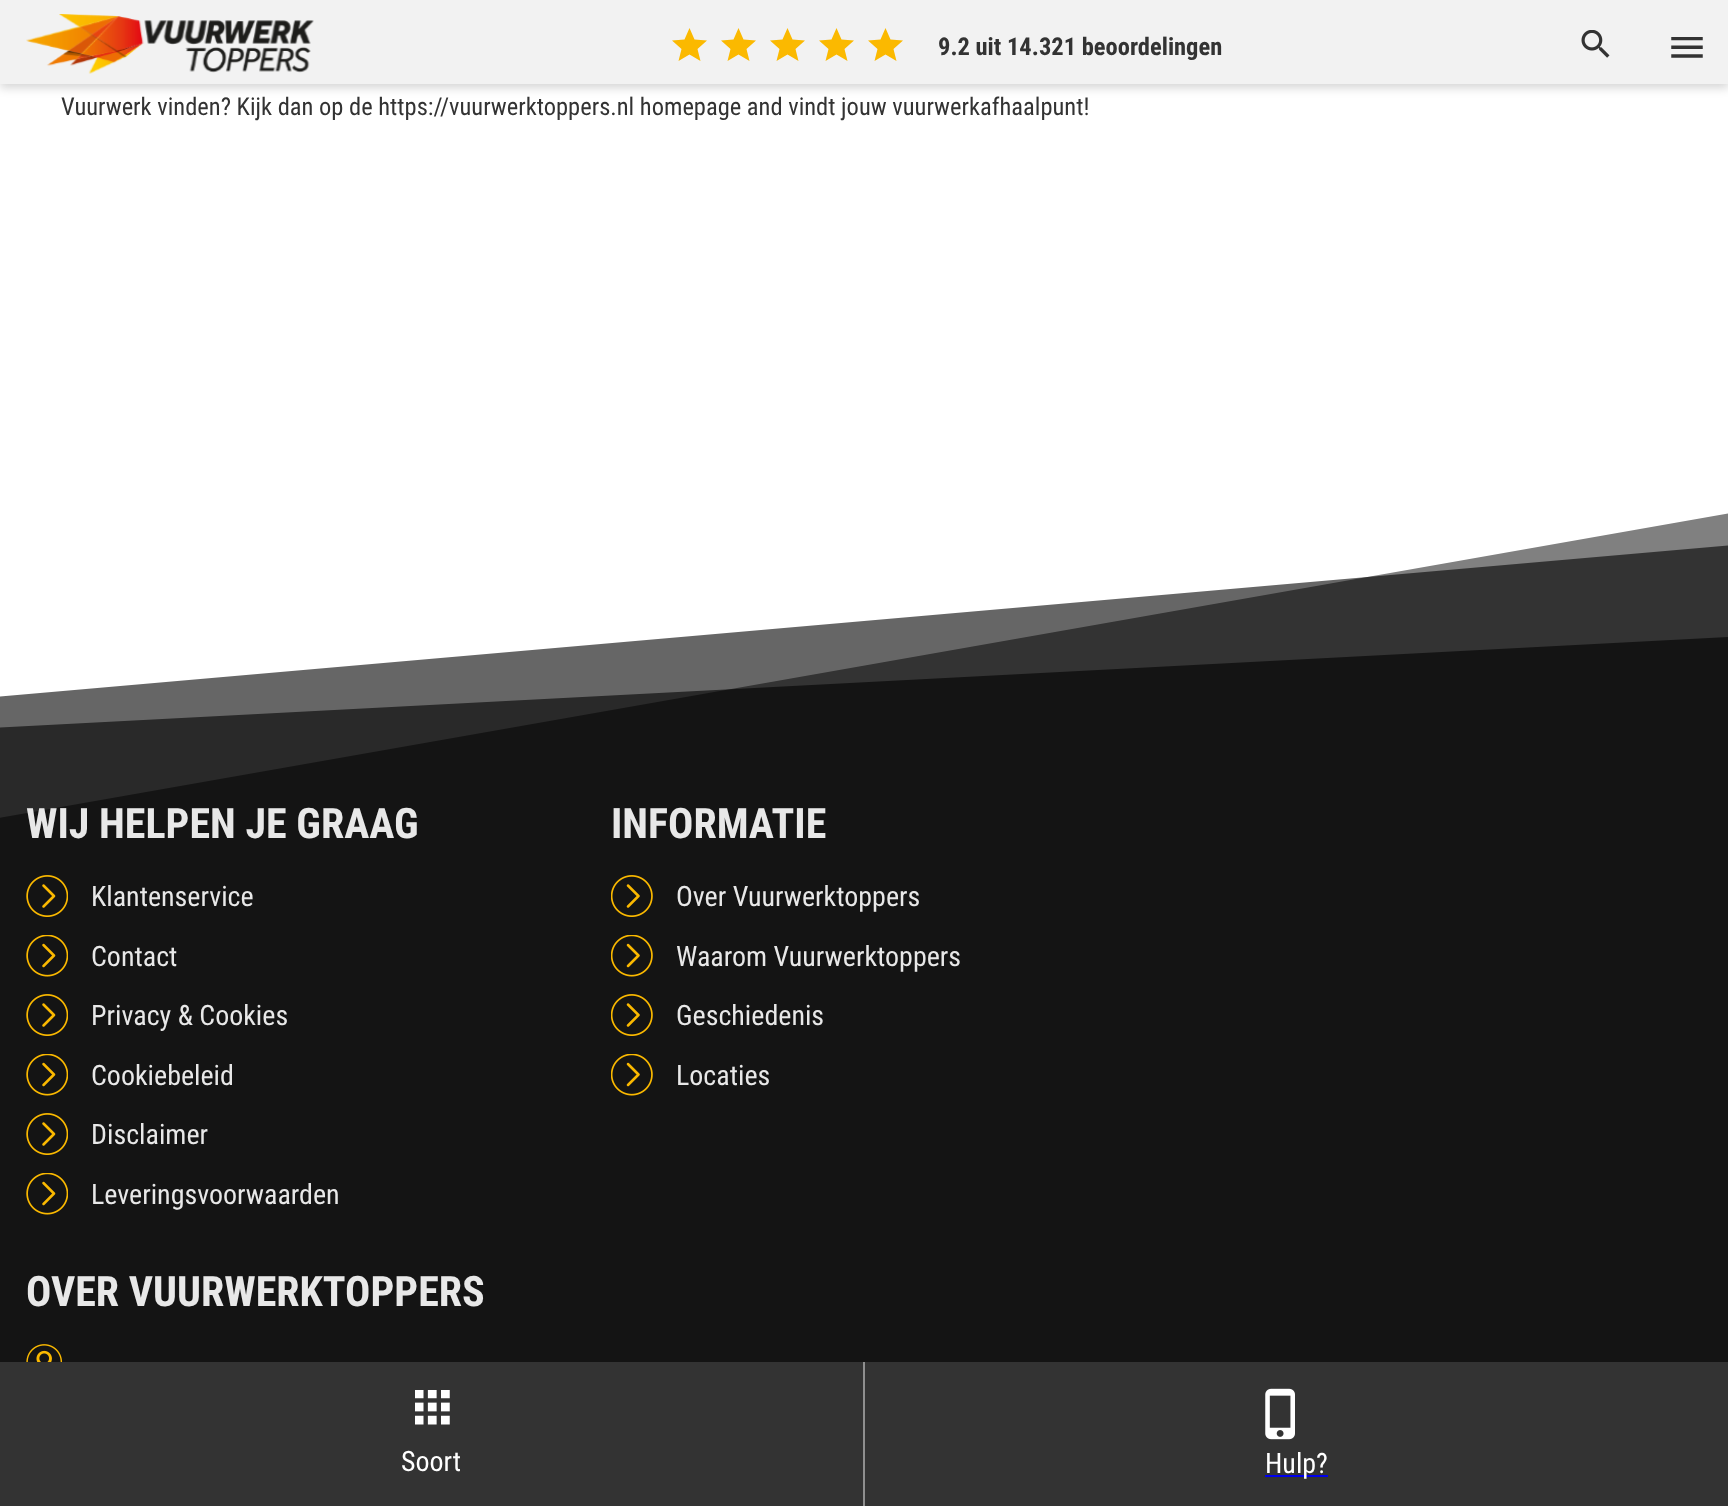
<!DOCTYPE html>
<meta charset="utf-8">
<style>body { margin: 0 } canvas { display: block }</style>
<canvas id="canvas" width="1728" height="1506"></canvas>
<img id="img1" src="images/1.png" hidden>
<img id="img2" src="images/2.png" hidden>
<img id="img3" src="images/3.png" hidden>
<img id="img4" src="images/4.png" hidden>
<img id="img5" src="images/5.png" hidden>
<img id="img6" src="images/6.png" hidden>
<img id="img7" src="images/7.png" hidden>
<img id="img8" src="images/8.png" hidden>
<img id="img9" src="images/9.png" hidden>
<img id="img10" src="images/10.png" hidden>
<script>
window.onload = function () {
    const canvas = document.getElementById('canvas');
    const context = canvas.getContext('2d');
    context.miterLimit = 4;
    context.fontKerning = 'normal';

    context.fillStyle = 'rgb(255, 255, 255)';
    context.fillRect(0, 0, 1728, 1506);
    context.fillStyle = 'rgba(0, 0, 0, 0.16)';
    context.filter = 'blur(5px)';
    context.beginPath();
    context.rect(0, 4, 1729, 84);
    context.fill();
    context.filter = 'none';
    context.fillStyle = 'rgb(242, 242, 242)';
    context.fillRect(0, 0, 1728, 84);
    context.drawImage(document.getElementById('img1'), 26, 14, 288, 60);
    context.fillStyle = 'rgb(251, 185, 0)';
    context.beginPath();
    context.moveTo(689.5, 54.5);
    context.lineTo(700.5, 61);
    context.lineTo(697.5, 49);
    context.lineTo(707, 40.5);
    context.lineTo(694.5, 39.5);
    context.lineTo(689.5, 28);
    context.lineTo(684.5, 39.5);
    context.lineTo(672, 40.5);
    context.lineTo(681.5, 49);
    context.lineTo(678.5, 61);
    context.closePath();
    context.fill();
    context.beginPath();
    context.moveTo(738.5, 54.5);
    context.lineTo(749.5, 61);
    context.lineTo(746.5, 49);
    context.lineTo(756, 40.5);
    context.lineTo(743.5, 39.5);
    context.lineTo(738.5, 28);
    context.lineTo(733.5, 39.5);
    context.lineTo(721, 40.5);
    context.lineTo(730.5, 49);
    context.lineTo(727.5, 61);
    context.closePath();
    context.fill();
    context.beginPath();
    context.moveTo(787.5, 54.5);
    context.lineTo(798.5, 61);
    context.lineTo(795.5, 49);
    context.lineTo(805, 40.5);
    context.lineTo(792.5, 39.5);
    context.lineTo(787.5, 28);
    context.lineTo(782.5, 39.5);
    context.lineTo(770, 40.5);
    context.lineTo(779.5, 49);
    context.lineTo(776.5, 61);
    context.closePath();
    context.fill();
    context.beginPath();
    context.moveTo(836.5, 54.5);
    context.lineTo(847.5, 61);
    context.lineTo(844.5, 49);
    context.lineTo(854, 40.5);
    context.lineTo(841.5, 39.5);
    context.lineTo(836.5, 28);
    context.lineTo(831.5, 39.5);
    context.lineTo(819, 40.5);
    context.lineTo(828.5, 49);
    context.lineTo(825.5, 61);
    context.closePath();
    context.fill();
    context.beginPath();
    context.moveTo(885.5, 54.5);
    context.lineTo(896.5, 61);
    context.lineTo(893.5, 49);
    context.lineTo(903, 40.5);
    context.lineTo(890.5, 39.5);
    context.lineTo(885.5, 28);
    context.lineTo(880.5, 39.5);
    context.lineTo(868, 40.5);
    context.lineTo(877.5, 49);
    context.lineTo(874.5, 61);
    context.closePath();
    context.fill();
    context.drawImage(document.getElementById('img2'), 1581, 30, 29, 28);
    context.drawImage(document.getElementById('img3'), 1671, 37, 32, 21);
    context.fillStyle = 'rgb(128, 128, 128)';
    context.beginPath();
    context.moveTo(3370, 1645);
    context.lineTo(-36, 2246);
    context.lineTo(-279, 867);
    context.lineTo(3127, 267);
    context.closePath();
    context.fill();
    context.fillStyle = 'rgba(0, 0, 0, 0.6)';
    context.beginPath();
    context.moveTo(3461, 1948);
    context.lineTo(7, 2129);
    context.lineTo(-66, 731);
    context.lineTo(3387, 550);
    context.closePath();
    context.fill();
    context.beginPath();
    context.moveTo(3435, 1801);
    context.lineTo(-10, 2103);
    context.lineTo(-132, 708);
    context.lineTo(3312, 407);
    context.closePath();
    context.fill();
    context.drawImage(document.getElementById('img4'), 26, 875, 42, 42);
    context.drawImage(document.getElementById('img5'), 26, 935, 42, 42);
    context.drawImage(document.getElementById('img4'), 26, 994, 42, 42);
    context.drawImage(document.getElementById('img5'), 26, 1054, 42, 42);
    context.drawImage(document.getElementById('img4'), 26, 1113, 42, 42);
    context.drawImage(document.getElementById('img5'), 26, 1173, 42, 42);
    context.drawImage(document.getElementById('img6'), 611, 875, 42, 42);
    context.drawImage(document.getElementById('img7'), 611, 935, 42, 42);
    context.drawImage(document.getElementById('img6'), 611, 994, 42, 42);
    context.drawImage(document.getElementById('img7'), 611, 1054, 42, 42);
    context.drawImage(document.getElementById('img8'), 26, 1344, 37, 18);
    context.fillStyle = 'rgb(51, 51, 51)';
    context.fillRect(0, 1362, 1728, 144);
    context.fillStyle = 'rgb(143, 143, 143)';
    context.fillRect(863, 1362, 2, 144);
    context.drawImage(document.getElementById('img9'), 415, 1390, 35, 35);
    context.drawImage(document.getElementById('img10'), 1265, 1388, 30, 52);
    context.fillStyle = 'rgb(0, 0, 238)';
    context.fillRect(1265, 1475, 63, 2);
    context.font = 'bold 24.5px Roboto Condensed';
    context.fillStyle = 'rgb(51, 51, 51)';
    context.fillText('9.2 uit 14.321 beoordelingen', 938, 55);
    context.font = '24.5px Roboto Condensed';
    context.fillText('Vuurwerk vinden? Kijk dan op de https://vuurwerktoppers.nl homepage and vindt jouw vuurwerkafhaalpunt!', 61, 115);
    context.font = 'bold 42px Roboto Condensed';
    context.fillStyle = 'rgb(232, 232, 232)';
    context.fillText('WIJ HELPEN JE GRAAG', 26, 838);
    context.font = '28px Roboto Condensed';
    context.fillText('Klantenservice', 91, 906);
    context.fillText('Contact', 91, 966);
    context.fillText('Privacy & Cookies', 91, 1025);
    context.fillText('Cookiebeleid', 91, 1085);
    context.fillText('Disclaimer', 91, 1144);
    context.fillText('Leveringsvoorwaarden', 91, 1204);
    context.font = 'bold 42px Roboto Condensed';
    context.fillText('INFORMATIE', 611, 838);
    context.font = '28px Roboto Condensed';
    context.fillText('Over Vuurwerktoppers', 676, 906);
    context.fillText('Waarom Vuurwerktoppers', 676, 966);
    context.fillText('Geschiedenis', 676, 1025);
    context.fillText('Locaties', 676, 1085);
    context.font = 'bold 42px Roboto Condensed';
    context.fillText('OVER VUURWERKTOPPERS', 26, 1306);
    context.font = '28px Roboto Condensed';
    context.fillStyle = 'rgb(255, 255, 255)';
    context.fillText('Soort', 401, 1471);
    context.fillText('Hulp?', 1265, 1473);
};
</script>
